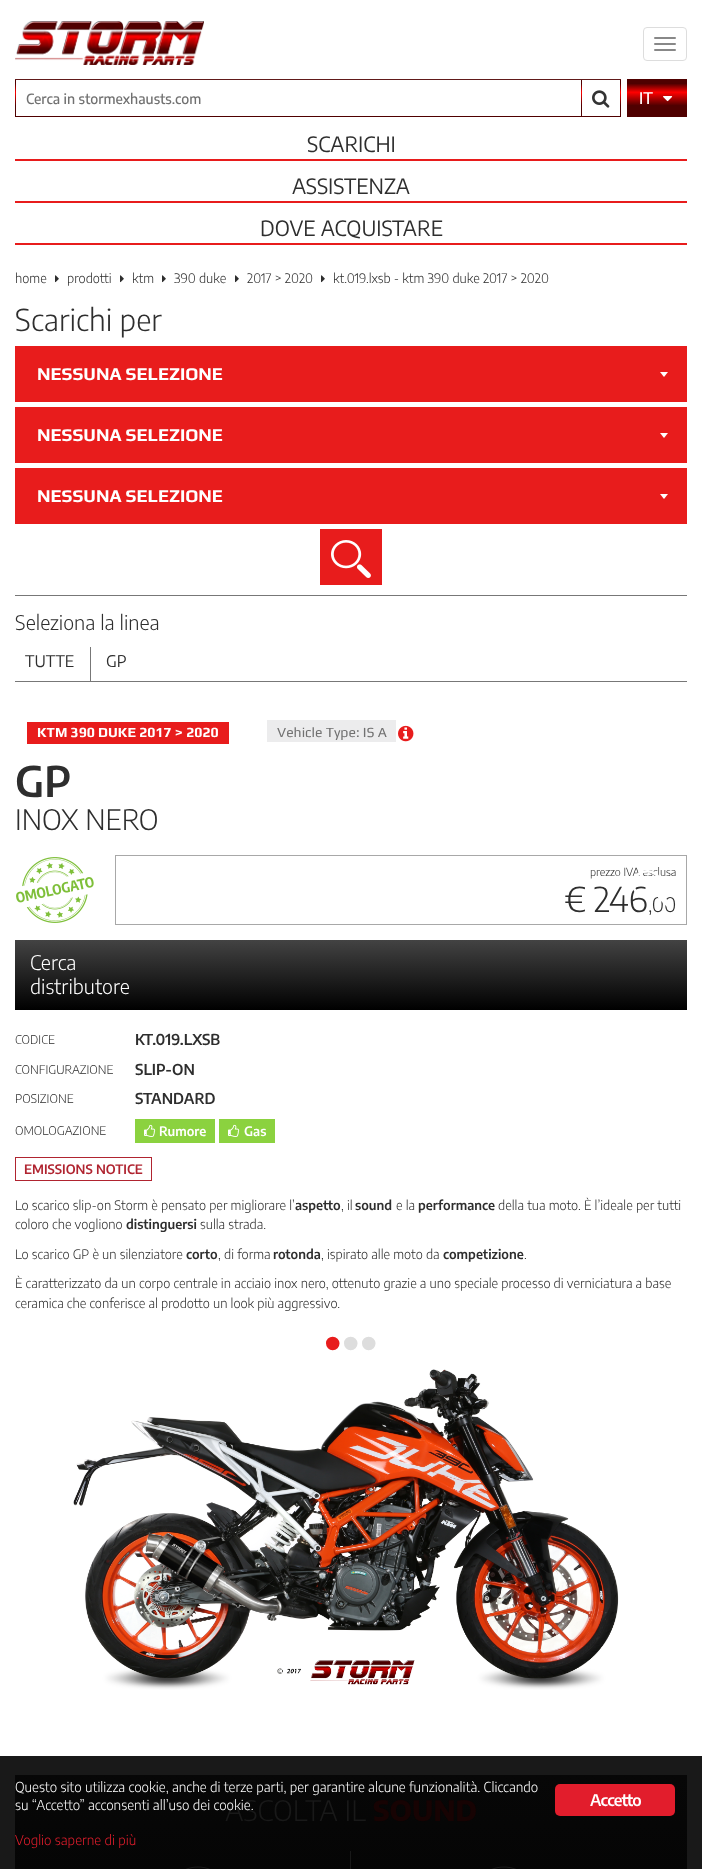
<!DOCTYPE html>
<meta charset="utf-8">
<style>body { margin: 0 } canvas { display: block }</style>
<canvas id="canvas" width="702" height="1869"></canvas>
<img id="img1" src="images/1.png" hidden>
<img id="img2" src="images/2.png" hidden>
<img id="img3" src="images/3.png" hidden>
<img id="img4" src="images/4.png" hidden>
<img id="img5" src="images/5.png" hidden>
<img id="img6" src="images/6.png" hidden>
<img id="img7" src="images/7.png" hidden>
<img id="img8" src="images/9.png" hidden>
<img id="img9" src="images/10.png" hidden>
<img id="img10" src="images/11.png" hidden>
<img id="img11" src="images/8.png" hidden>
<script>
window.onload = function () {
    const canvas = document.getElementById('canvas');
    const context = canvas.getContext('2d');
    context.miterLimit = 4;
    context.fontKerning = 'normal';
    let gradient;

    context.fillStyle = 'rgb(255, 255, 255)';
    context.fillRect(0, 0, 702, 1869);
    context.fillStyle = 'rgb(25, 25, 25)';
    context.fillRect(0, 1756, 702, 113);
    context.drawImage(document.getElementById('img1'), 15, 21, 189, 44);
    context.beginPath();
    context.roundRect(643.5, 27.5, 43, 33, 3.5);
    context.strokeStyle = 'rgb(221, 221, 221)';
    context.stroke();
    context.fillStyle = 'rgb(136, 136, 136)';
    context.beginPath();
    context.roundRect(654, 37, 22, 2, 1);
    context.fill();
    context.beginPath();
    context.roundRect(654, 43, 22, 2, 1);
    context.fill();
    context.beginPath();
    context.roundRect(654, 49, 22, 2, 1);
    context.fill();
    gradient = context.createLinearGradient(318, 79, 318, 117);
    gradient.addColorStop(0.12, 'rgb(79, 0, 0)');
    gradient.addColorStop(0.35, 'rgb(255, 0, 0)');
    gradient.addColorStop(0.7, 'rgb(79, 0, 0)');
    context.fillStyle = gradient;
    context.fillRect(15, 80, 606, 37);
    context.fillStyle = 'rgb(97, 26, 26)';
    context.fillRect(15, 79, 606, 1);
    context.fillStyle = 'rgb(255, 255, 255)';
    context.fillRect(16, 80, 565, 36);
    context.fillRect(582, 80, 38, 36);
    context.drawImage(document.getElementById('img2'), 592, 90, 18, 18);
    gradient = context.createLinearGradient(657, 79, 657, 117);
    gradient.addColorStop(0.12, 'rgb(79, 0, 0)');
    gradient.addColorStop(0.35, 'rgb(255, 0, 0)');
    gradient.addColorStop(0.7, 'rgb(79, 0, 0)');
    context.fillStyle = gradient;
    context.fillRect(627, 79, 60, 38);
    context.drawImage(document.getElementById('img3'), 663, 96, 10, 6);
    context.fillStyle = 'rgb(232, 28, 28)';
    context.fillRect(15, 159, 672, 2);
    context.fillRect(15, 201, 672, 2);
    context.fillRect(15, 243, 672, 2);
    context.drawImage(document.getElementById('img4'), 55, 275, 4, 8);
    context.drawImage(document.getElementById('img4'), 120, 275, 4, 8);
    context.drawImage(document.getElementById('img4'), 162, 275, 4, 8);
    context.drawImage(document.getElementById('img4'), 235, 275, 4, 8);
    context.drawImage(document.getElementById('img4'), 321, 275, 4, 8);
    context.fillStyle = 'rgb(119, 119, 119)';
    context.fillRect(15, 595, 672, 1);
    context.fillStyle = 'rgb(232, 28, 28)';
    context.fillRect(15, 346, 672, 56);
    context.fillStyle = 'rgb(255, 255, 255)';
    context.beginPath();
    context.moveTo(660, 372);
    context.lineTo(668, 372);
    context.lineTo(664, 377);
    context.closePath();
    context.fill();
    context.fillStyle = 'rgb(232, 28, 28)';
    context.fillRect(15, 407, 672, 56);
    context.fillStyle = 'rgb(255, 255, 255)';
    context.beginPath();
    context.moveTo(660, 433);
    context.lineTo(668, 433);
    context.lineTo(664, 438);
    context.closePath();
    context.fill();
    context.fillStyle = 'rgb(232, 28, 28)';
    context.fillRect(15, 468, 672, 56);
    context.fillStyle = 'rgb(255, 255, 255)';
    context.beginPath();
    context.moveTo(660, 494);
    context.lineTo(668, 494);
    context.lineTo(664, 499);
    context.closePath();
    context.fill();
    context.fillStyle = 'rgb(232, 28, 28)';
    context.fillRect(320, 529, 62, 56);
    context.drawImage(document.getElementById('img5'), 331, 540, 40, 38);
    context.fillStyle = 'rgb(119, 119, 119)';
    context.fillRect(15, 681, 672, 1);
    context.fillRect(90, 647, 1, 34);
    context.fillStyle = 'rgb(232, 28, 28)';
    context.fillRect(27, 722, 202, 22);
    context.fillStyle = 'rgb(236, 236, 237)';
    context.fillRect(267, 720, 129, 22);
    context.drawImage(document.getElementById('img6'), 398, 725, 16, 17);
    context.drawImage(document.getElementById('img7'), 16, 857, 78, 66);
    context.strokeStyle = 'rgb(168, 168, 168)';
    context.strokeRect(115.5, 855.5, 571, 69);
    gradient = context.createLinearGradient(351, 940, 351, 1010);
    gradient.addColorStop(0, 'rgb(67, 67, 67)');
    gradient.addColorStop(1, 'rgb(0, 0, 0)');
    context.fillStyle = gradient;
    context.fillRect(15, 940, 672, 70);
    context.fillStyle = 'rgb(139, 210, 63)';
    context.fillRect(135, 1119, 80, 24);
    context.drawImage(document.getElementById('img8'), 144, 1124, 12, 13);
    context.fillRect(219, 1119, 56, 24);
    context.drawImage(document.getElementById('img8'), 228, 1124, 12, 13);
    context.strokeStyle = 'rgb(176, 36, 48)';
    context.strokeRect(15.5, 1157.5, 136, 23);
    context.drawImage(document.getElementById('img9'), 73, 1369, 546, 321);
    gradient = context.createLinearGradient(351, 1775, 351, 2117);
    gradient.addColorStop(0, 'rgb(7, 7, 7)');
    gradient.addColorStop(1, 'rgb(0, 0, 0)');
    context.fillStyle = gradient;
    context.fillRect(15, 1775, 672, 94);
    context.fillStyle = 'rgb(25, 25, 25)';
    context.fillRect(350, 1851, 1, 18);
    context.drawImage(document.getElementById('img10'), 185, 1866, 26, 3);
    context.drawImage(document.getElementById('img10'), 491, 1866, 26, 3);
    context.fillStyle = 'rgb(226, 29, 44)';
    context.beginPath();
    context.roundRect(555, 1784, 120, 32, 5);
    context.fill();
    context.font = '500 14px Encode Sans';
    context.fillStyle = 'rgb(113, 113, 113)';
    context.fillText('Cerca in stormexhausts.com', 26, 104);
    context.font = '500 16px Encode Sans';
    context.fillStyle = 'rgb(255, 255, 255)';
    context.fillText('IT', 639, 104);
    context.font = '21px Encode Sans';
    context.fillStyle = 'rgb(46, 46, 46)';
    context.fillText('SCARICHI', 307, 152);
    context.fillText('ASSISTENZA', 292, 194);
    context.fillText('DOVE ACQUISTARE', 260, 236);
    context.font = '300 13px Encode Sans';
    context.fillText('home', 15, 283);
    context.fillText('prodotti', 67, 283);
    context.fillText('ktm', 132, 283);
    context.fillText('390 duke', 174, 283);
    context.fillText('2017 > 2020', 247, 283);
    context.fillText('kt.019.lxsb - ktm 390 duke 2017 > 2020', 333, 283);
    context.font = '300 30px Encode Sans';
    context.fillText('Scarichi per', 15, 331);
    context.font = 'bold 18px Play';
    context.fillStyle = 'rgb(255, 255, 255)';
    context.fillText('NESSUNA SELEZIONE', 37, 380);
    context.fillText('NESSUNA SELEZIONE', 37, 441);
    context.fillText('NESSUNA SELEZIONE', 37, 502);
    context.font = '300 20px Encode Sans';
    context.fillStyle = 'rgb(46, 46, 46)';
    context.fillText('Seleziona la linea', 15, 630);
    context.font = '16px Encode Sans';
    context.fillText('TUTTE', 25, 667);
    context.fillText('GP', 106, 667);
    context.font = 'bold 14px Play';
    context.fillStyle = 'rgb(255, 255, 255)';
    context.fillText('KTM 390 DUKE 2017 > 2020', 37, 737);
    context.font = '14px Play';
    context.fillStyle = 'rgb(113, 113, 113)';
    context.fillText('Vehicle Type: IS A', 277, 737);
    context.font = '600 42px Encode Sans';
    context.fillStyle = 'rgb(46, 46, 46)';
    context.fillText('GP', 15, 797);
    context.font = '300 28px Encode Sans';
    context.fillText('INOX NERO', 15, 830);
    context.font = '300 11px Encode Sans';
    context.fillText('prezzo IVA esclusa', 590, 876);
    context.font = '300 34px Encode Sans';
    context.fillText('€ 246', 564, 912);
    context.font = '300 20px Encode Sans';
    context.fillText(',00', 648, 912);
    context.drawImage(document.getElementById('img11'), 633, 870, 35, 37);
    context.fillStyle = 'rgb(255, 255, 255)';
    context.fillText('Cerca', 30, 970);
    context.fillText('distributore', 30, 994);
    context.font = '300 12px Encode Sans';
    context.fillStyle = 'rgb(46, 46, 46)';
    context.fillText('CODICE', 15, 1044);
    context.font = '600 15px Encode Sans';
    context.fillText('KT.019.LXSB', 135, 1045);
    context.font = '300 12px Encode Sans';
    context.fillText('CONFIGURAZIONE', 15, 1074);
    context.font = '600 15px Encode Sans';
    context.fillText('SLIP-ON', 135, 1075);
    context.font = '300 12px Encode Sans';
    context.fillText('POSIZIONE', 15, 1103);
    context.font = '600 15px Encode Sans';
    context.fillText('STANDARD', 135, 1104);
    context.font = '300 12px Encode Sans';
    context.fillText('OMOLOGAZIONE', 15, 1135);
    context.font = '600 13px Encode Sans';
    context.fillStyle = 'rgb(255, 255, 255)';
    context.fillText('Rumore', 159, 1136);
    context.fillText('Gas', 244, 1136);
    context.fillStyle = 'rgb(176, 36, 48)';
    context.fillText('EMISSIONS NOTICE', 24, 1174);
    context.font = '300 13px Encode Sans';
    context.fillStyle = 'rgb(46, 46, 46)';
    context.fillText('Lo scarico slip-on Storm è pensato per migliorare l’', 15, 1210);
    context.font = '600 13px Encode Sans';
    context.fillText('aspetto', 295, 1210);
    context.font = '300 13px Encode Sans';
    context.fillText(', il', 341, 1210);
    context.font = '600 13px Encode Sans';
    context.fillText('sound', 355, 1210);
    context.font = '300 13px Encode Sans';
    context.fillText('e la', 396, 1210);
    context.font = '600 13px Encode Sans';
    context.fillText('performance', 418, 1210);
    context.font = '300 13px Encode Sans';
    context.fillText('della tua moto. È l’ideale per tutti', 498, 1210);
    context.fillText('coloro che vogliono', 15, 1229);
    context.font = '600 13px Encode Sans';
    context.fillText('distinguersi', 126, 1229);
    context.font = '300 13px Encode Sans';
    context.fillText('sulla strada.', 200, 1229);
    context.fillText('Lo scarico GP è un silenziatore', 15, 1259);
    context.font = '600 13px Encode Sans';
    context.fillText('corto', 186, 1259);
    context.font = '300 13px Encode Sans';
    context.fillText(', di forma', 218, 1259);
    context.font = '600 13px Encode Sans';
    context.fillText('rotonda', 273, 1259);
    context.font = '300 13px Encode Sans';
    context.fillText(', ispirato alle moto da', 321, 1259);
    context.font = '600 13px Encode Sans';
    context.fillText('competizione', 443, 1259);
    context.font = '300 13px Encode Sans';
    context.fillText('.', 524, 1259);
    context.fillText('È caratterizzato da un corpo centrale in acciaio inox nero, ottenuto grazie a uno speciale processo di verniciatura a base', 15, 1288);
    context.fillText('ceramica che conferisce al prodotto un look più aggressivo.', 15, 1308);
    context.font = '50px Liberation Sans';
    context.fillStyle = 'rgb(232, 28, 28)';
    context.fillText('•', 324, 1360);
    context.fillStyle = 'rgb(221, 221, 221)';
    context.fillText('•', 342, 1360);
    context.fillText('•', 360, 1360);
    context.font = '300 28px Encode Sans';
    context.fillStyle = 'rgb(25, 25, 25)';
    context.fillText('ASCOLTA IL', 225, 1821);
    context.font = '800 28px Encode Sans';
    context.fillStyle = 'rgb(23, 3, 3)';
    context.fillText('SOUND', 373, 1821);
    context.font = '300 13.6px Encode Sans';
    context.fillStyle = 'rgb(255, 255, 255)';
    context.fillText('Questo sito utilizza cookie, anche di terze parti, per garantire alcune funzionalità. Cliccando', 15, 1792);
    context.fillText('su “Accetto” acconsenti all’uso dei cookie.', 15, 1810);
    context.fillStyle = 'rgb(226, 29, 44)';
    context.fillText('Voglio saperne di più', 15, 1845);
    context.letterSpacing = '-0.75px';
    context.font = '600 16px Encode Sans';
    context.fillStyle = 'rgb(255, 255, 255)';
    context.fillText('Accetto', 590, 1806);
};
</script>
